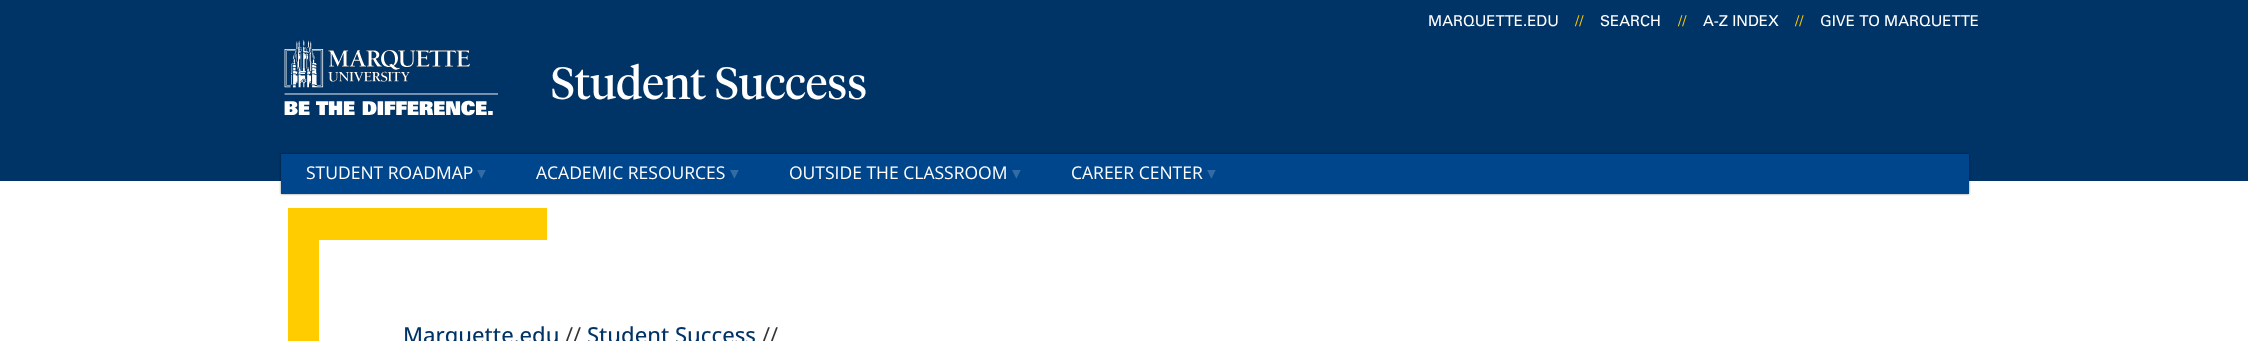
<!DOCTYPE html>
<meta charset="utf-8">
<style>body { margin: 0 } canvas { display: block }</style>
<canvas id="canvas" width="2248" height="341"></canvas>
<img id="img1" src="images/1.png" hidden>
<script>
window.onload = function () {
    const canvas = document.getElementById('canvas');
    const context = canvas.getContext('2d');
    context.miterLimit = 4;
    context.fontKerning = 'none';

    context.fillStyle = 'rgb(255, 255, 255)';
    context.fillRect(0, 0, 2248, 341);
    context.fillStyle = 'rgb(0, 51, 102)';
    context.fillRect(0, 0, 2248, 181);
    context.drawImage(document.getElementById('img1'), 284, 39, 214, 77);
    context.fillStyle = 'rgba(0, 0, 0, 0.5)';
    context.filter = 'blur(1px)';
    context.beginPath();
    context.rect(281, 154, 1688, 40);
    context.fill();
    context.filter = 'none';
    context.fillStyle = 'rgb(0, 70, 141)';
    context.fillRect(281, 154, 1688, 40);
    context.fillStyle = 'rgb(255, 204, 0)';
    context.beginPath();
    context.moveTo(288, 208);
    context.lineTo(547, 208);
    context.lineTo(547, 260);
    context.lineTo(339, 260);
    context.lineTo(339, 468);
    context.lineTo(288, 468);
    context.closePath();
    context.fill();
    context.fillStyle = 'rgb(255, 255, 255)';
    context.fillRect(319, 240, 228, 101);
    context.font = '15px "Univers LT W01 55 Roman"';
    context.fillText('MARQUETTE.EDU', 1428, 26);
    context.fillStyle = 'rgb(255, 204, 0)';
    context.fillText('//', 1575, 26);
    context.fillStyle = 'rgb(255, 255, 255)';
    context.fillText('SEARCH', 1600, 26);
    context.fillStyle = 'rgb(255, 204, 0)';
    context.fillText('//', 1678, 26);
    context.fillStyle = 'rgb(255, 255, 255)';
    context.fillText('A-Z INDEX', 1703, 26);
    context.fillStyle = 'rgb(255, 204, 0)';
    context.fillText('//', 1795, 26);
    context.fillStyle = 'rgb(255, 255, 255)';
    context.fillText('GIVE TO', 1820, 26);
    context.fillText('MARQUETTE', 1884, 26);
    context.font = '45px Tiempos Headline';
    context.fillText('Student Success', 551, 99);
    context.font = '17.5px Open Sans';
    context.fillText('STUDENT ROADMAP', 306, 179);
    context.font = '17.5px DejaVu Sans';
    context.fillStyle = 'rgb(51, 107, 164)';
    context.fillText('▾︎', 477, 179);
    context.font = '17.5px Open Sans';
    context.fillStyle = 'rgb(255, 255, 255)';
    context.fillText('ACADEMIC RESOURCES', 536, 179);
    context.font = '17.5px DejaVu Sans';
    context.fillStyle = 'rgb(51, 107, 164)';
    context.fillText('▾︎', 730, 179);
    context.font = '17.5px Open Sans';
    context.fillStyle = 'rgb(255, 255, 255)';
    context.fillText('OUTSIDE THE CLASSROOM', 789, 179);
    context.font = '17.5px DejaVu Sans';
    context.fillStyle = 'rgb(51, 107, 164)';
    context.fillText('▾︎', 1012, 179);
    context.font = '17.5px Open Sans';
    context.fillStyle = 'rgb(255, 255, 255)';
    context.fillText('CAREER CENTER', 1071, 179);
    context.font = '17.5px DejaVu Sans';
    context.fillStyle = 'rgb(51, 107, 164)';
    context.fillText('▾︎', 1207, 179);
    context.font = '500 22px Open Sans';
    context.fillStyle = 'rgb(0, 51, 102)';
    context.fillText('Marquette.edu', 403, 343);
    context.font = '22px Open Sans';
    context.fillStyle = 'rgb(51, 51, 51)';
    context.fillText('//', 565, 343);
    context.font = '500 22px Open Sans';
    context.fillStyle = 'rgb(0, 51, 102)';
    context.fillText('Student Success', 587, 343);
    context.font = '22px Open Sans';
    context.fillStyle = 'rgb(51, 51, 51)';
    context.fillText('//', 762, 343);
};
</script>
